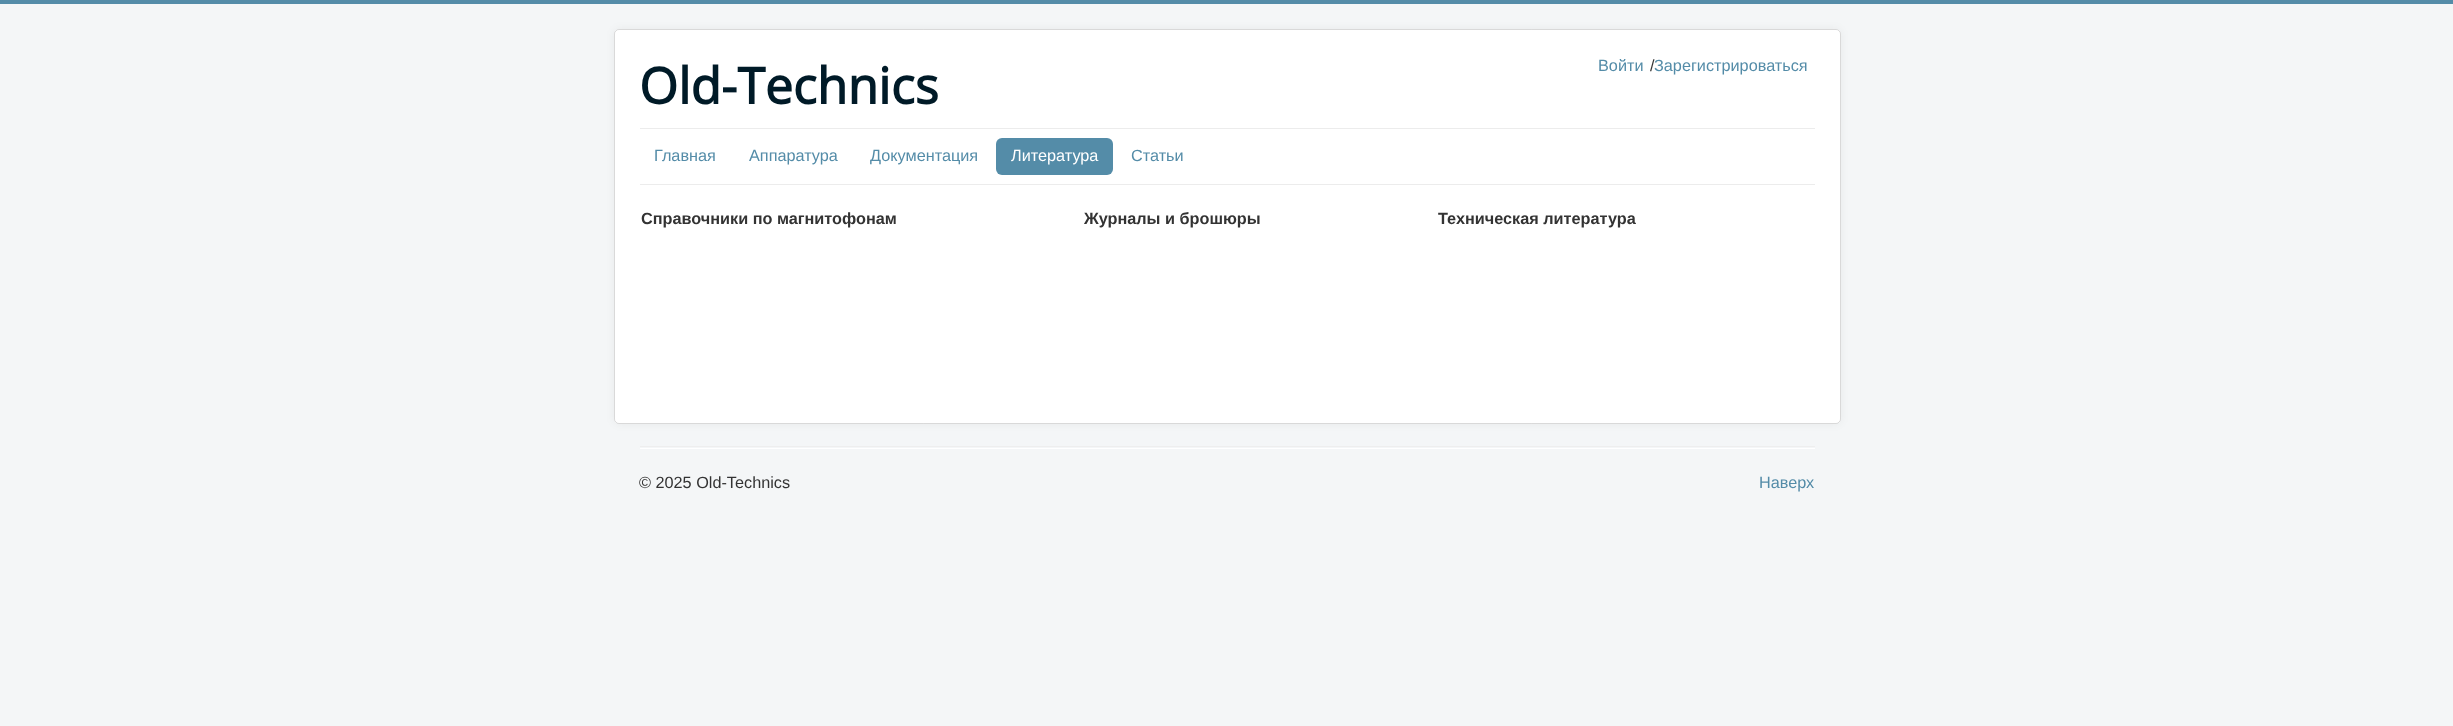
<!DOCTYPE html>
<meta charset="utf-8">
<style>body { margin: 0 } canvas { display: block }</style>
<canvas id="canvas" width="2453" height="726"></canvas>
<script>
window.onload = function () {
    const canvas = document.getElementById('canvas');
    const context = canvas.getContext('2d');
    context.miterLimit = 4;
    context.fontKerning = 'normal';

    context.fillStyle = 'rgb(244, 246, 247)';
    context.fillRect(0, 0, 2453, 726);
    context.fillStyle = 'rgb(84, 140, 168)';
    context.fillRect(0, 0, 2453, 4);
    context.fillStyle = 'rgba(0, 0, 0, 0.05)';
    context.filter = 'blur(4px)';
    context.beginPath();
    context.roundRect(614, 29, 1227, 395, 5);
    context.fill();
    context.filter = 'none';
    context.fillStyle = 'rgb(255, 255, 255)';
    context.beginPath();
    context.roundRect(614, 29, 1227, 395, 5);
    context.fill();
    context.beginPath();
    context.roundRect(614.5, 29.5, 1226, 394, 4.5);
    context.strokeStyle = 'rgba(0, 0, 0, 0.15)';
    context.stroke();
    context.fillStyle = 'rgb(236, 236, 236)';
    context.fillRect(640, 128, 1175, 1);
    context.fillRect(640, 184, 1175, 1);
    context.fillStyle = 'rgb(84, 140, 168)';
    context.beginPath();
    context.roundRect(996, 138, 117, 37, 6);
    context.fill();
    context.fillStyle = 'rgb(238, 238, 238)';
    context.fillRect(640, 446, 1175, 1);
    context.fillStyle = 'rgb(255, 255, 255)';
    context.fillRect(640, 448, 1175, 1);
    context.font = 'bold 50px Open Sans';
    context.fillStyle = 'rgb(0, 26, 39)';
    context.fillText('Old-Technics', 639, 104);
    context.font = '16.25px Liberation Sans';
    context.fillStyle = 'rgb(84, 140, 168)';
    context.fillText('Войти', 1598, 71);
    context.fillStyle = 'rgb(51, 51, 51)';
    context.fillText('/', 1650, 71);
    context.fillStyle = 'rgb(84, 140, 168)';
    context.fillText('Зарегистрироваться', 1654, 71);
    context.fillText('Главная', 654, 161);
    context.fillText('Аппаратура', 749, 161);
    context.fillText('Документация', 870, 161);
    context.fillStyle = 'rgb(255, 255, 255)';
    context.fillText('Литература', 1011, 161);
    context.fillStyle = 'rgb(84, 140, 168)';
    context.fillText('Статьи', 1131, 161);
    context.font = 'bold 16.25px Liberation Sans';
    context.fillStyle = 'rgb(51, 51, 51)';
    context.fillText('Справочники по магнитофонам', 641, 224);
    context.fillText('Журналы и брошюры', 1084, 224);
    context.fillText('Техническая литература', 1438, 224);
    context.font = '16.25px Liberation Sans';
    context.fillText('© 2025 Old-Technics', 639, 488);
    context.fillStyle = 'rgb(84, 140, 168)';
    context.fillText('Наверх', 1759, 488);
};
</script>
